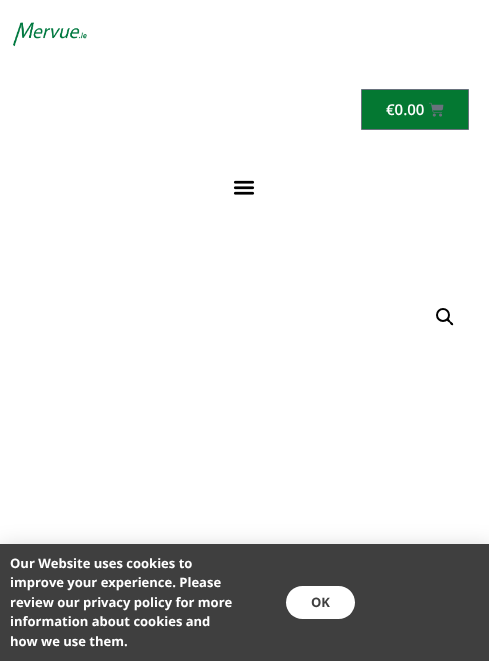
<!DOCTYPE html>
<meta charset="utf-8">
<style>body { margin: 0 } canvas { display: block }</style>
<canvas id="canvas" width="489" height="661"></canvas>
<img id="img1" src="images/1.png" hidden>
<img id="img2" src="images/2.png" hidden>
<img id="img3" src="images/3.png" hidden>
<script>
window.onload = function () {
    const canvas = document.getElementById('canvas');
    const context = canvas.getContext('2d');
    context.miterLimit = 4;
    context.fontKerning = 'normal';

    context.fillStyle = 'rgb(255, 255, 255)';
    context.fillRect(0, 0, 489, 661);
    context.drawImage(document.getElementById('img1'), 13, 22, 74, 25);
    context.fillStyle = 'rgb(4, 120, 50)';
    context.beginPath();
    context.rect(361.5, 89.5, 107, 40);
    context.fill();
    context.strokeStyle = 'rgb(105, 114, 125)';
    context.stroke();
    context.drawImage(document.getElementById('img2'), 429, 102, 15, 15);
    context.drawImage(document.getElementById('img3'), 233, 180, 22, 15);
    context.beginPath();
    context.arc(443, 315, 6, 0, 2 * Math.PI);
    context.strokeStyle = 'rgb(0, 0, 0)';
    context.lineWidth = 2;
    context.stroke();
    context.fillStyle = 'rgb(0, 0, 0)';
    context.beginPath();
    context.moveTo(447, 319);
    context.bezierCurveTo(448.5, 318, 450, 320.5, 450.5, 321.5);
    context.bezierCurveTo(451.5, 322, 454, 323.5, 453, 325);
    context.bezierCurveTo(451.5, 326, 450, 323.5, 449.5, 322.5);
    context.bezierCurveTo(448.5, 322, 446, 320.5, 447, 319);
    context.closePath();
    context.fill();
    context.fillStyle = 'rgba(0, 0, 0, 0.2)';
    context.filter = 'blur(11.5px)';
    context.beginPath();
    context.rect(-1, 549, 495, 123);
    context.fill();
    context.filter = 'none';
    context.fillStyle = 'rgb(63, 63, 63)';
    context.fillRect(0, 544, 489, 117);
    context.fillStyle = 'rgb(255, 255, 255)';
    context.beginPath();
    context.roundRect(286, 586, 69, 33, 16.5);
    context.fill();
    context.font = '600 15px Open Sans';
    context.fillText('€0.00', 386, 115);
    context.font = 'bold 13px Open Sans';
    context.fillText('Our Website uses cookies to', 10, 568);
    context.fillText('improve your experience. Please', 10, 587);
    context.fillText('review our privacy policy for more', 10, 607);
    context.fillText('information about cookies and', 10, 626);
    context.fillText('how we use them.', 10, 646);
    context.fillStyle = 'rgb(63, 63, 63)';
    context.fillText('OK', 311, 607);
};
</script>
